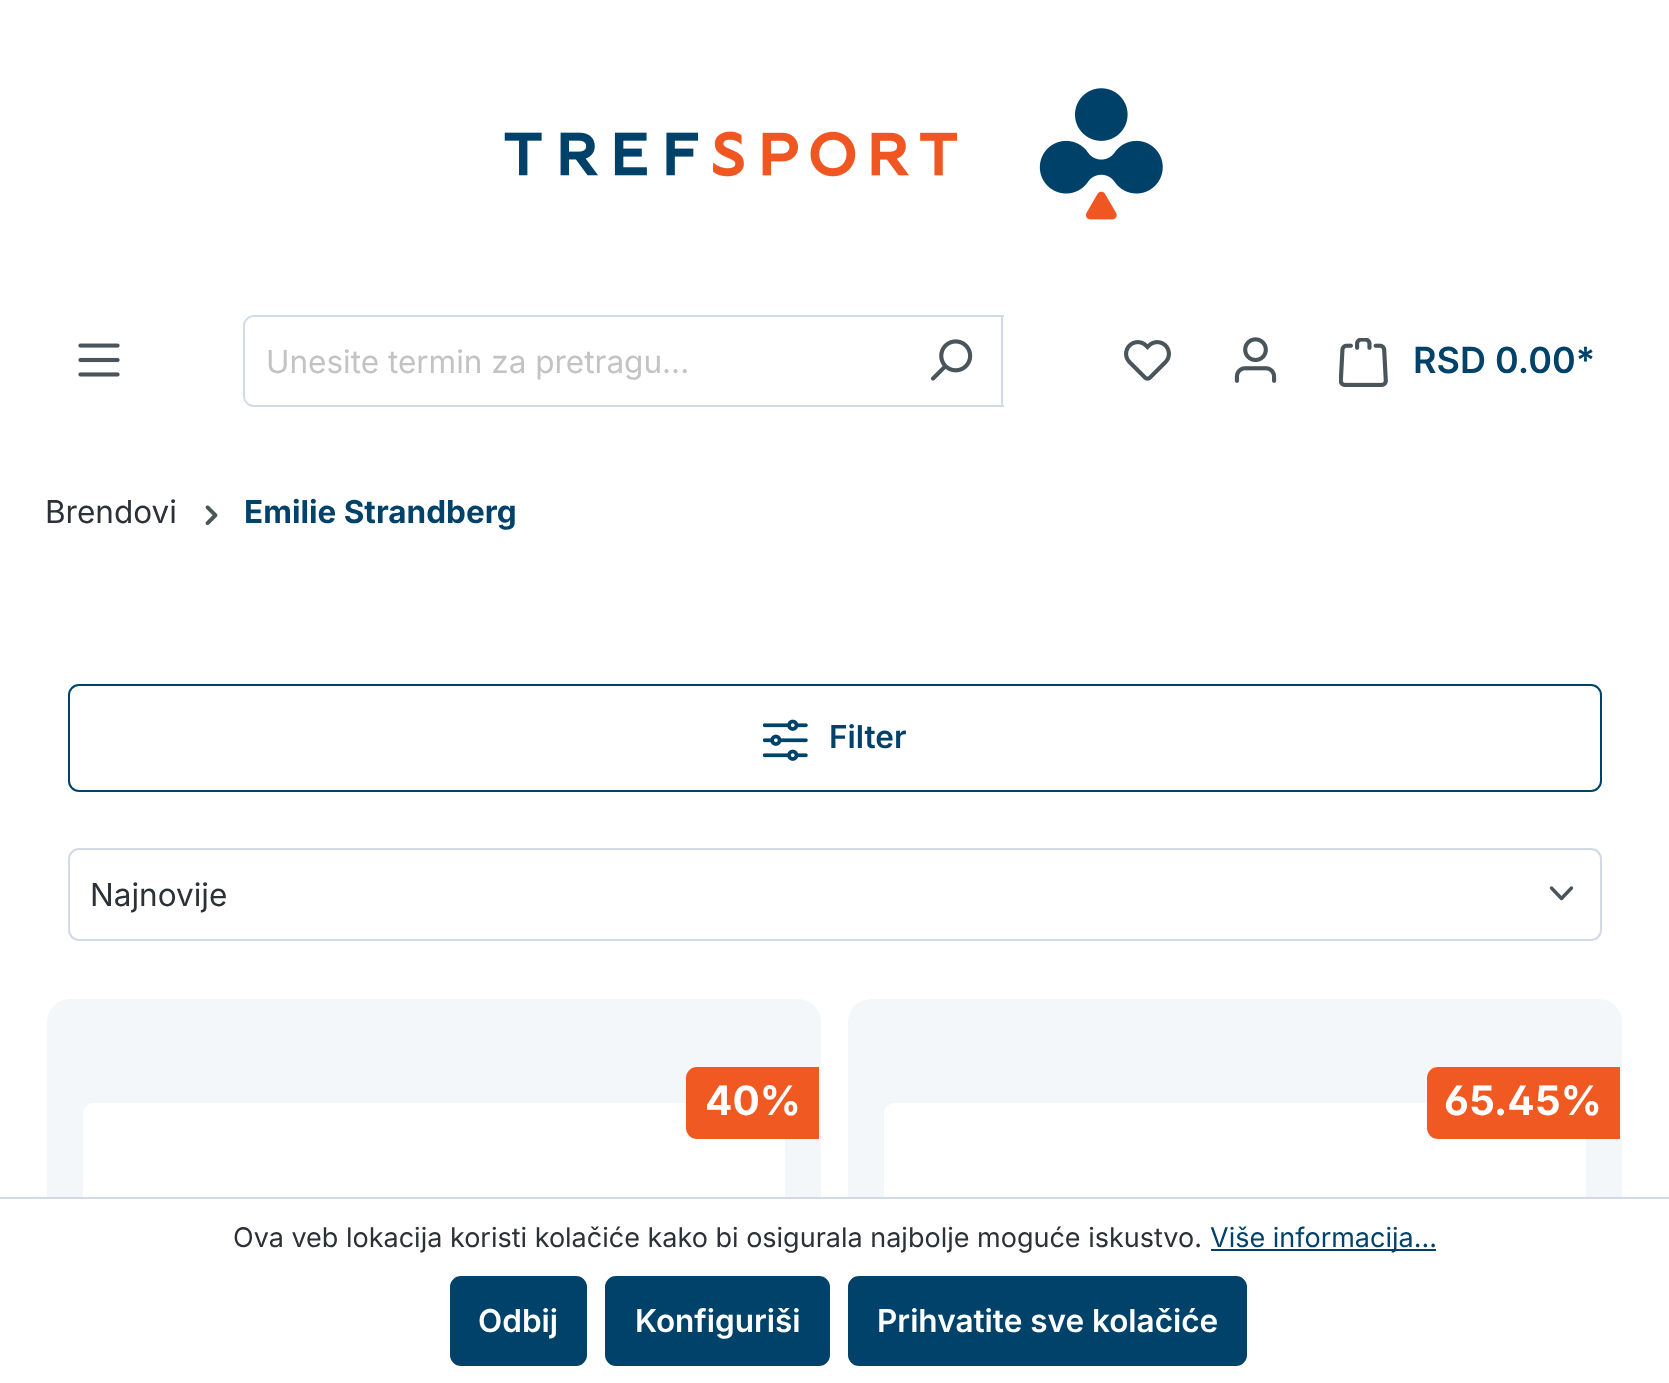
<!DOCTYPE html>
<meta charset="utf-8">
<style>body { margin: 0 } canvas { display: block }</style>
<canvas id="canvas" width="1669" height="1383"></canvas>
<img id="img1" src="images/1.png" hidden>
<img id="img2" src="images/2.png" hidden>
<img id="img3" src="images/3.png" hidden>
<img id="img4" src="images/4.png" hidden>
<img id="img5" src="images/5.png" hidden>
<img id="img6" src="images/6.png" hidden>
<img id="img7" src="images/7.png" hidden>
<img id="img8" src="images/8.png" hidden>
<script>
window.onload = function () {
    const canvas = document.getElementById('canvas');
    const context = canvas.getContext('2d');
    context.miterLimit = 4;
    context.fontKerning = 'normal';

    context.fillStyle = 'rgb(255, 255, 255)';
    context.fillRect(0, 0, 1669, 1383);
    context.drawImage(document.getElementById('img1'), 504, 88, 659, 132);
    context.drawImage(document.getElementById('img2'), 78, 343, 42, 34);
    context.fillStyle = 'rgb(209, 218, 229)';
    context.beginPath();
    context.moveTo(254, 315);
    context.lineTo(898, 315);
    context.lineTo(898, 407);
    context.lineTo(254, 407);
    context.bezierCurveTo(248, 407, 243, 402, 243, 396);
    context.lineTo(243, 326);
    context.bezierCurveTo(243, 320, 248, 315, 254, 315);
    context.closePath();
    context.moveTo(254, 317);
    context.lineTo(898, 317);
    context.lineTo(898, 405);
    context.lineTo(254, 405);
    context.bezierCurveTo(249, 405, 245, 401, 245, 396);
    context.lineTo(245, 326);
    context.bezierCurveTo(245, 321, 249, 317, 254, 317);
    context.closePath();
    context.fill('evenodd');
    context.fillRect(898, 315, 106, 2);
    context.fillRect(1001, 315, 2, 92);
    context.fillRect(898, 405, 106, 2);
    context.drawImage(document.getElementById('img3'), 930, 339, 43, 42);
    context.drawImage(document.getElementById('img4'), 1124, 340, 47, 41);
    context.drawImage(document.getElementById('img5'), 1234, 337, 43, 46);
    context.drawImage(document.getElementById('img6'), 1339, 338, 49, 49);
    context.drawImage(document.getElementById('img7'), 205, 505, 13, 21);
    context.beginPath();
    context.roundRect(69, 685, 1532, 106, 10);
    context.strokeStyle = 'rgb(0, 66, 105)';
    context.lineWidth = 2;
    context.stroke();
    context.drawImage(document.getElementById('img8'), 763, 719, 45, 42);
    context.beginPath();
    context.moveTo(1551.5, 888);
    context.lineTo(1561.5, 898.5);
    context.lineTo(1571.5, 888);
    context.strokeStyle = 'rgb(74, 84, 91)';
    context.lineWidth = 3.4;
    context.lineCap = 'round';
    context.lineJoin = 'round';
    context.stroke();
    context.beginPath();
    context.roundRect(69, 849, 1532, 91, 10);
    context.strokeStyle = 'rgb(209, 218, 229)';
    context.lineWidth = 2;
    context.lineJoin = 'miter';
    context.stroke();
    context.fillStyle = 'rgb(244, 247, 250)';
    context.beginPath();
    context.roundRect(47, 999, 774, 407, 23);
    context.fill();
    context.fillStyle = 'rgb(255, 255, 255)';
    context.beginPath();
    context.roundRect(83, 1103, 702, 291, 11);
    context.fill();
    context.fillStyle = 'rgb(241, 89, 34)';
    context.beginPath();
    context.roundRect(686, 1067, 133, 72, [11, 0, 0, 11]);
    context.fill();
    context.fillStyle = 'rgb(244, 247, 250)';
    context.beginPath();
    context.roundRect(848, 999, 774, 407, 23);
    context.fill();
    context.fillStyle = 'rgb(255, 255, 255)';
    context.beginPath();
    context.roundRect(884, 1103, 702, 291, 11);
    context.fill();
    context.fillStyle = 'rgb(241, 89, 34)';
    context.beginPath();
    context.roundRect(1427, 1067, 193, 72, [11, 0, 0, 11]);
    context.fill();
    context.fillStyle = 'rgb(255, 255, 255)';
    context.fillRect(47, 1199, 1575, 184);
    context.fillStyle = 'rgb(209, 218, 229)';
    context.fillRect(0, 1197, 1669, 2);
    context.fillStyle = 'rgb(0, 66, 105)';
    context.fillRect(1211, 1249, 225, 2);
    context.beginPath();
    context.roundRect(451, 1277, 135, 88, 10);
    context.fill();
    context.strokeStyle = 'rgb(0, 66, 105)';
    context.stroke();
    context.beginPath();
    context.roundRect(606, 1277, 223, 88, 10);
    context.fill();
    context.stroke();
    context.beginPath();
    context.roundRect(849, 1277, 397, 88, 10);
    context.fill();
    context.stroke();
    context.font = '31.5px Inter';
    context.fillStyle = 'rgb(195, 195, 195)';
    context.fillText('Unesite termin za pretragu...', 266, 373);
    context.font = '600 36px Inter';
    context.fillStyle = 'rgb(0, 66, 105)';
    context.fillText('RSD 0.00*', 1413, 373);
    context.font = '31.5px Inter';
    context.fillStyle = 'rgb(43, 49, 54)';
    context.fillText('Brendovi', 45, 523);
    context.font = 'bold 31.5px Inter';
    context.fillStyle = 'rgb(0, 66, 105)';
    context.fillText('Emilie Strandberg', 244, 523);
    context.font = '600 31.5px Inter';
    context.fillText('Filter', 829, 748);
    context.font = '31.5px Inter';
    context.fillStyle = 'rgb(43, 49, 54)';
    context.fillText('Najnovije', 90, 906);
    context.font = 'bold 40.5px Inter';
    context.fillStyle = 'rgb(255, 255, 255)';
    context.fillText('40%', 705, 1115);
    context.font = 'bold 40.5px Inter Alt';
    context.fillText('65.45%', 1444, 1115);
    context.font = '27px Inter';
    context.fillStyle = 'rgb(43, 49, 54)';
    context.fillText('Ova veb lokacija koristi kolačiće kako bi osigurala najbolje moguće iskustvo.', 233, 1247);
    context.fillStyle = 'rgb(0, 66, 105)';
    context.fillText('Više informacija...', 1210, 1247);
    context.font = '600 31.5px Inter';
    context.fillStyle = 'rgb(255, 255, 255)';
    context.fillText('Odbij', 478, 1332);
    context.fillText('Konfiguriši', 635, 1332);
    context.fillText('Prihvatite sve kolačiće', 877, 1332);
};
</script>
